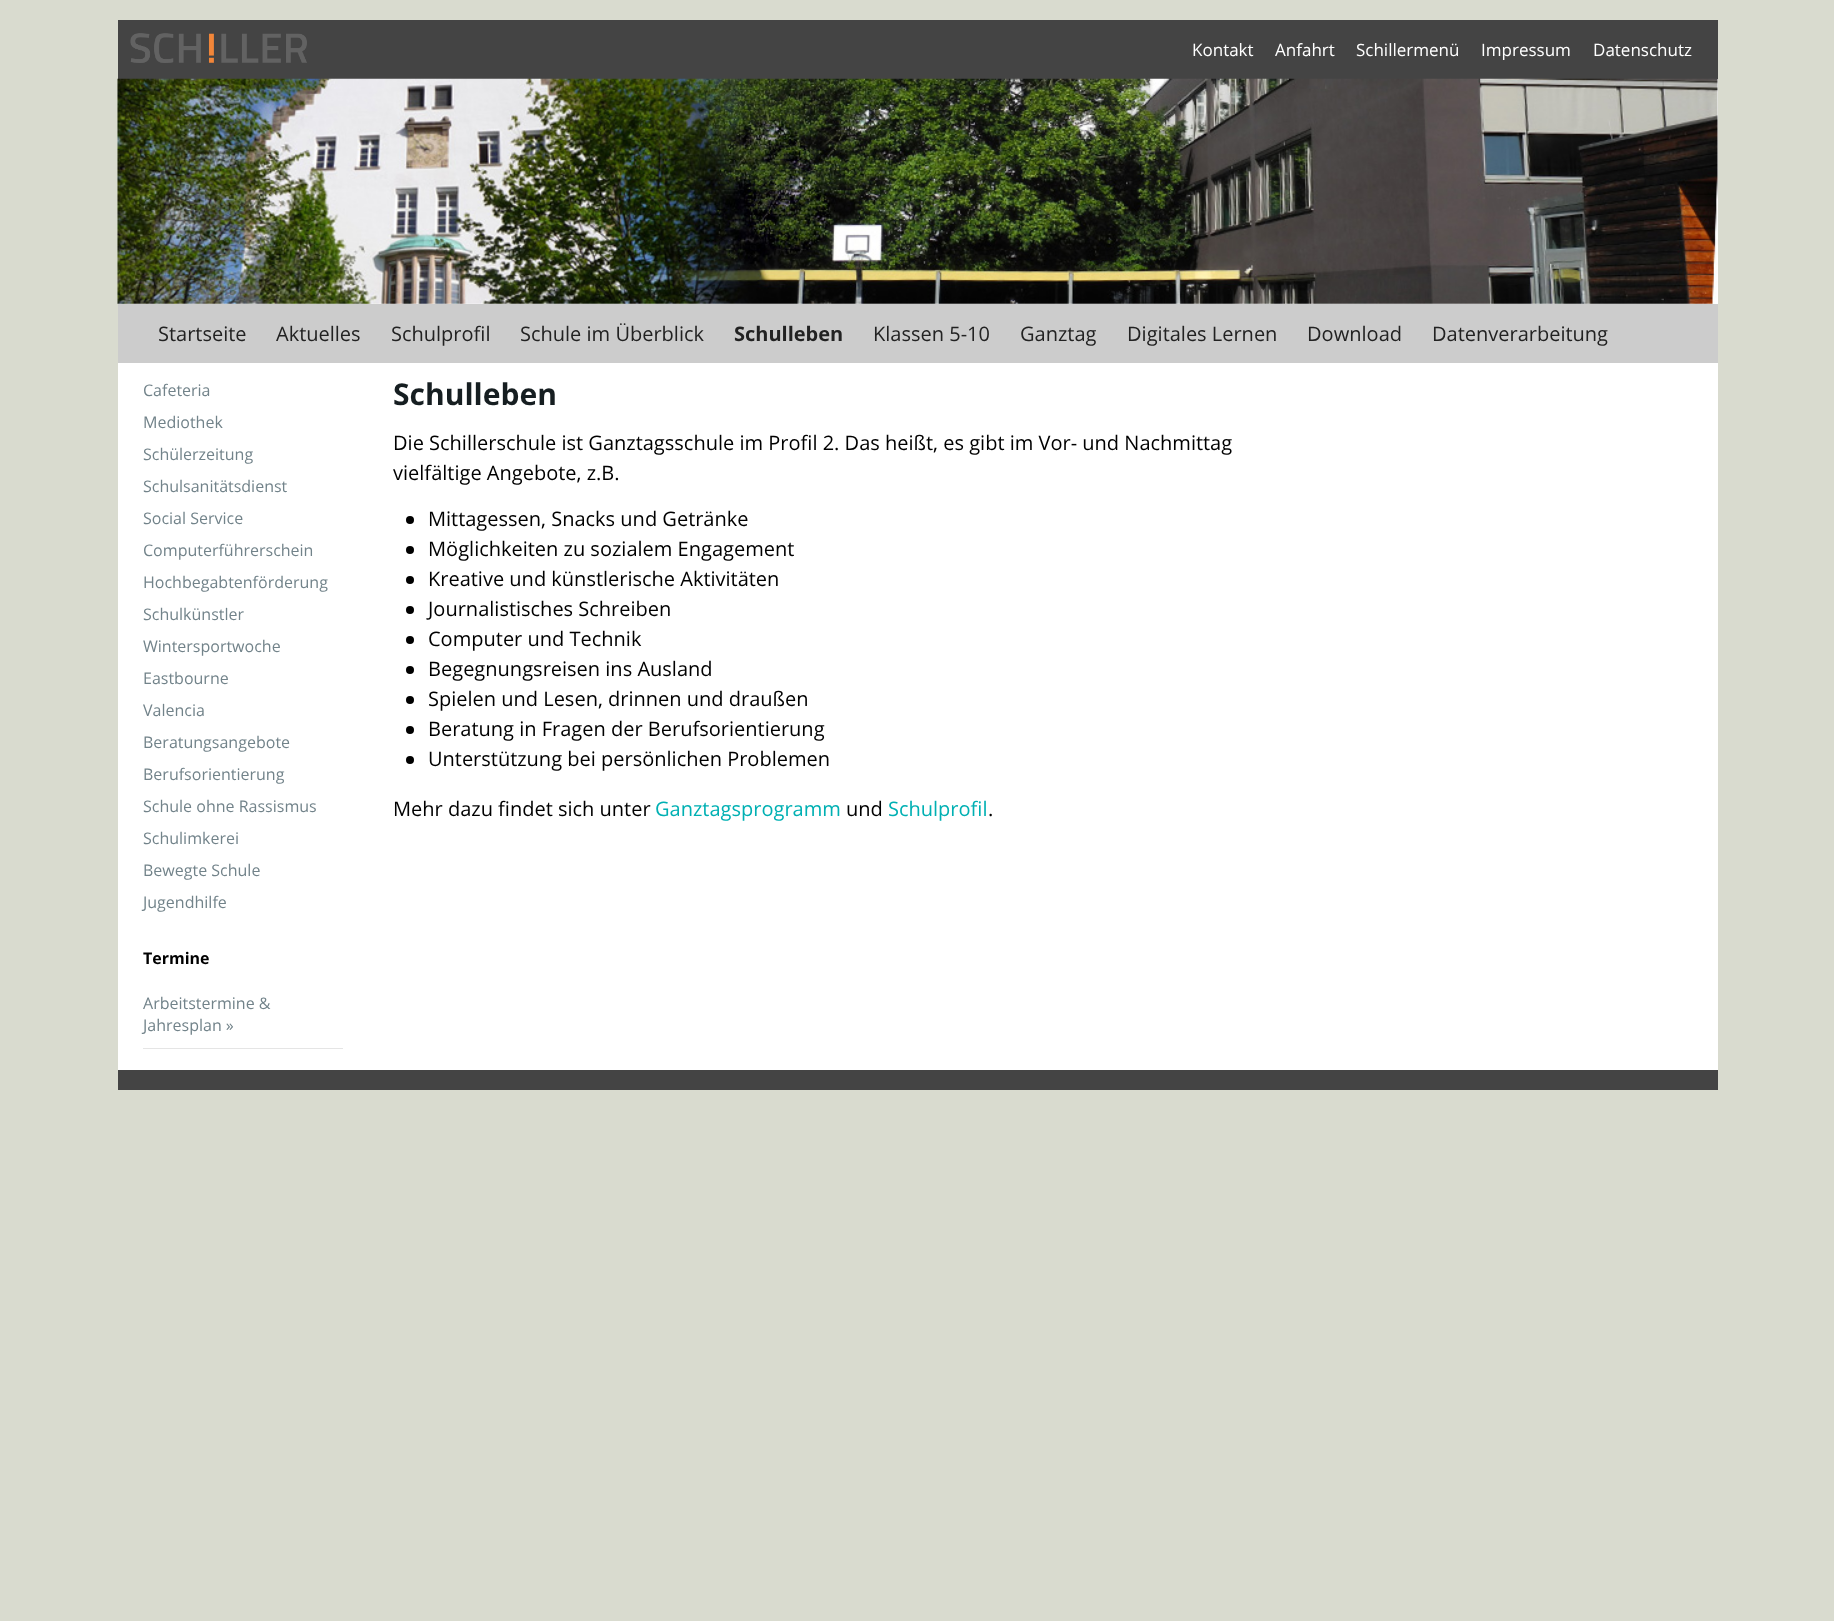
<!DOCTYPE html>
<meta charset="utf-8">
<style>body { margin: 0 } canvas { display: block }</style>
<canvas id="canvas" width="1834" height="1621"></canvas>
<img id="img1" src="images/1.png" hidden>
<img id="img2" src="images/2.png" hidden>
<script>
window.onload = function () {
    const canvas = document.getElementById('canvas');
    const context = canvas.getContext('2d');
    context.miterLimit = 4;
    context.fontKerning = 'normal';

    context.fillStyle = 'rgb(217, 219, 207)';
    context.fillRect(0, 0, 1834, 1621);
    context.fillStyle = 'rgb(255, 255, 255)';
    context.fillRect(118, 79, 1600, 991);
    context.fillStyle = 'rgb(68, 68, 68)';
    context.fillRect(118, 1070, 1600, 20);
    context.fillRect(118, 20, 1600, 59);
    context.drawImage(document.getElementById('img1'), 130, 33, 177, 30);
    context.drawImage(document.getElementById('img2'), 117, 78, 1601, 226);
    context.fillStyle = 'rgb(204, 204, 204)';
    context.fillRect(118, 304, 1600, 59);
    context.fillStyle = 'rgb(229, 229, 229)';
    context.fillRect(143, 1048, 200, 1);
    context.fillStyle = 'rgb(0, 0, 0)';
    context.beginPath();
    context.arc(410, 520, 4, 0, 2 * Math.PI);
    context.fill();
    context.beginPath();
    context.arc(410, 550, 4, 0, 2 * Math.PI);
    context.fill();
    context.beginPath();
    context.arc(410, 580, 4, 0, 2 * Math.PI);
    context.fill();
    context.beginPath();
    context.arc(410, 610, 4, 0, 2 * Math.PI);
    context.fill();
    context.beginPath();
    context.arc(410, 640, 4, 0, 2 * Math.PI);
    context.fill();
    context.beginPath();
    context.arc(410, 670, 4, 0, 2 * Math.PI);
    context.fill();
    context.beginPath();
    context.arc(410, 700, 4, 0, 2 * Math.PI);
    context.fill();
    context.beginPath();
    context.arc(410, 730, 4, 0, 2 * Math.PI);
    context.fill();
    context.beginPath();
    context.arc(410, 760, 4, 0, 2 * Math.PI);
    context.fill();
    context.font = '17px Open Sans';
    context.fillStyle = 'rgb(255, 255, 255)';
    context.fillText('Kontakt', 1192, 56);
    context.fillText('Anfahrt', 1275, 56);
    context.fillText('Schillermenü', 1356, 56);
    context.fillText('Impressum', 1481, 56);
    context.fillText('Datenschutz', 1593, 56);
    context.font = '20px Open Sans';
    context.fillStyle = 'rgb(34, 34, 34)';
    context.fillText('Startseite', 158, 341);
    context.fillText('Aktuelles', 276, 341);
    context.fillText('Schulprofil', 391, 341);
    context.fillText('Schule im Überblick', 520, 341);
    context.font = 'bold 20px Open Sans';
    context.fillText('Schulleben', 734, 341);
    context.font = '20px Open Sans';
    context.fillText('Klassen 5-10', 873, 341);
    context.fillText('Ganztag', 1020, 341);
    context.fillText('Digitales Lernen', 1127, 341);
    context.fillText('Download', 1307, 341);
    context.fillText('Datenverarbeitung', 1432, 341);
    context.font = '16px Open Sans';
    context.fillStyle = 'rgb(114, 131, 138)';
    context.fillText('Cafeteria', 143, 396);
    context.fillText('Mediothek', 143, 428);
    context.fillText('Schülerzeitung', 143, 460);
    context.fillText('Schulsanitätsdienst', 143, 492);
    context.fillText('Social Service', 143, 524);
    context.fillText('Computerführerschein', 143, 556);
    context.fillText('Hochbegabtenförderung', 143, 588);
    context.fillText('Schulkünstler', 143, 620);
    context.fillText('Wintersportwoche', 143, 652);
    context.fillText('Eastbourne', 143, 684);
    context.fillText('Valencia', 143, 716);
    context.fillText('Beratungsangebote', 143, 748);
    context.fillText('Berufsorientierung', 143, 780);
    context.fillText('Schule ohne Rassismus', 143, 812);
    context.fillText('Schulimkerei', 143, 844);
    context.fillText('Bewegte Schule', 143, 876);
    context.fillText('Jugendhilfe', 143, 908);
    context.font = 'bold 16px Open Sans';
    context.fillStyle = 'rgb(0, 0, 0)';
    context.fillText('Termine', 143, 964);
    context.font = '16px Open Sans';
    context.fillStyle = 'rgb(114, 131, 138)';
    context.fillText('Arbeitstermine &', 143, 1009);
    context.fillText('Jahresplan »', 143, 1031);
    context.font = 'bold 30px Open Sans';
    context.fillStyle = 'rgb(22, 30, 33)';
    context.fillText('Schulleben', 393, 405);
    context.font = '20px Open Sans';
    context.fillStyle = 'rgb(0, 0, 0)';
    context.fillText('Die Schillerschule ist Ganztagsschule im Profil 2. Das heißt, es gibt im Vor- und Nachmittag', 393, 450);
    context.fillText('vielfältige Angebote, z.B.', 393, 480);
    context.fillText('Mittagessen, Snacks und Getränke', 428, 526);
    context.fillText('Möglichkeiten zu sozialem Engagement', 428, 556);
    context.fillText('Kreative und künstlerische Aktivitäten', 428, 586);
    context.fillText('Journalistisches Schreiben', 428, 616);
    context.fillText('Computer und Technik', 428, 646);
    context.fillText('Begegnungsreisen ins Ausland', 428, 676);
    context.fillText('Spielen und Lesen, drinnen und draußen', 428, 706);
    context.fillText('Beratung in Fragen der Berufsorientierung', 428, 736);
    context.fillText('Unterstützung bei persönlichen Problemen', 428, 766);
    context.fillText('Mehr dazu findet sich unter', 393, 816);
    context.fillStyle = 'rgb(0, 176, 179)';
    context.fillText('Ganztagsprogramm', 655, 816);
    context.fillStyle = 'rgb(0, 0, 0)';
    context.fillText('und', 846, 816);
    context.fillStyle = 'rgb(0, 176, 179)';
    context.fillText('Schulprofil', 888, 816);
    context.fillStyle = 'rgb(0, 0, 0)';
    context.fillText('.', 988, 816);
};
</script>
